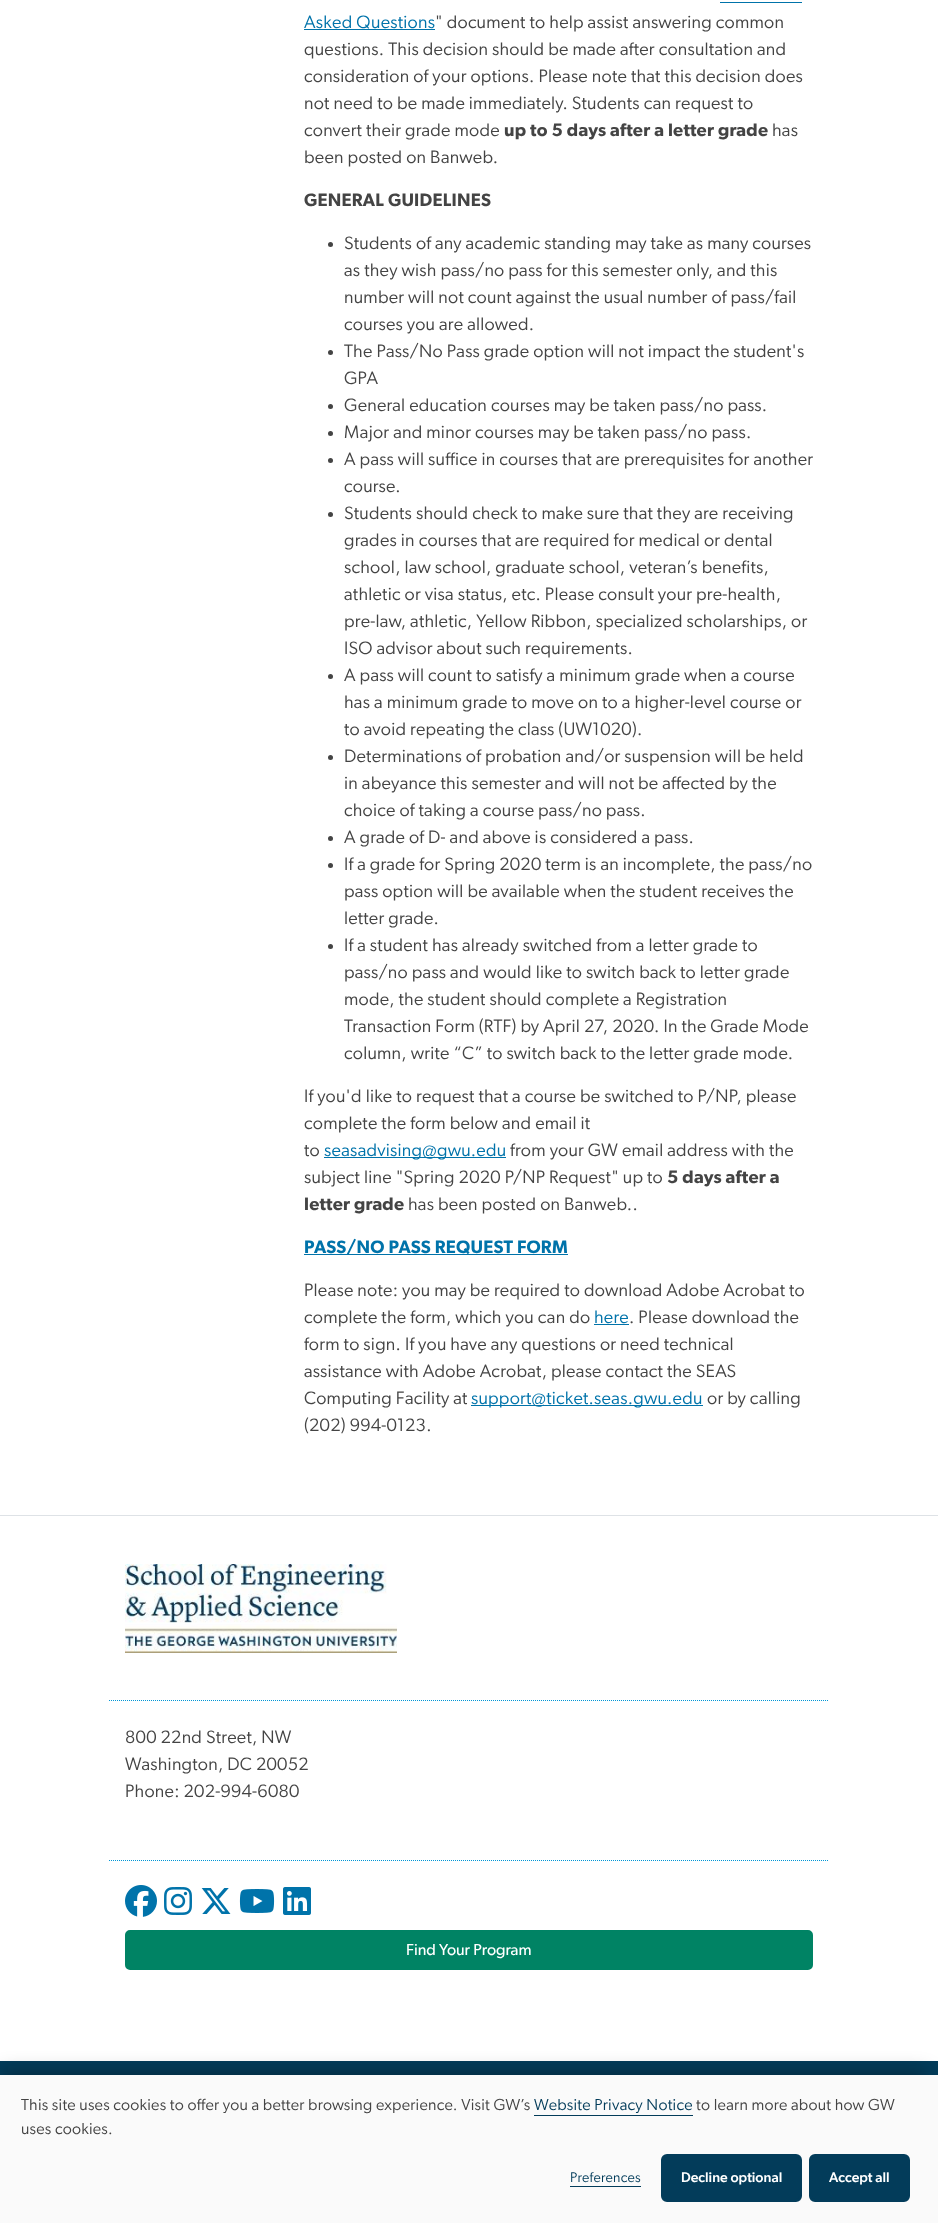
<!DOCTYPE html>
<meta charset="utf-8">
<style>body { margin: 0 } canvas { display: block }</style>
<canvas id="canvas" width="938" height="2223"></canvas>
<img id="img1" src="images/1.png" hidden>
<img id="img2" src="images/2.png" hidden>
<img id="img3" src="images/3.png" hidden>
<img id="img4" src="images/4.png" hidden>
<img id="img5" src="images/5.png" hidden>
<img id="img6" src="images/6.png" hidden>
<script>
window.onload = function () {
    const canvas = document.getElementById('canvas');
    const context = canvas.getContext('2d');
    context.miterLimit = 4;
    context.fontKerning = 'normal';

    context.fillStyle = 'rgb(255, 255, 255)';
    context.fillRect(0, 0, 938, 2223);
    context.fillStyle = 'rgb(0, 115, 170)';
    context.fillRect(720, 2, 82, 1);
    context.fillRect(304, 29, 131, 1);
    context.fillStyle = 'rgb(68, 68, 68)';
    context.beginPath();
    context.arc(330.5, 244.5, 2.5, 0, 2 * Math.PI);
    context.fill();
    context.beginPath();
    context.arc(330.5, 352.5, 2.5, 0, 2 * Math.PI);
    context.fill();
    context.beginPath();
    context.arc(330.5, 406.5, 2.5, 0, 2 * Math.PI);
    context.fill();
    context.beginPath();
    context.arc(330.5, 433.5, 2.5, 0, 2 * Math.PI);
    context.fill();
    context.beginPath();
    context.arc(330.5, 460.5, 2.5, 0, 2 * Math.PI);
    context.fill();
    context.beginPath();
    context.arc(330.5, 514.5, 2.5, 0, 2 * Math.PI);
    context.fill();
    context.beginPath();
    context.arc(330.5, 676.5, 2.5, 0, 2 * Math.PI);
    context.fill();
    context.beginPath();
    context.arc(330.5, 757.5, 2.5, 0, 2 * Math.PI);
    context.fill();
    context.beginPath();
    context.arc(330.5, 838.5, 2.5, 0, 2 * Math.PI);
    context.fill();
    context.beginPath();
    context.arc(330.5, 865.5, 2.5, 0, 2 * Math.PI);
    context.fill();
    context.beginPath();
    context.arc(330.5, 946.5, 2.5, 0, 2 * Math.PI);
    context.fill();
    context.fillStyle = 'rgb(0, 115, 170)';
    context.fillRect(324, 1157, 182, 1);
    context.fillRect(304, 1254, 264, 1);
    context.fillRect(594, 1324, 35, 1);
    context.fillRect(471, 1405, 232, 1);
    context.fillStyle = 'rgb(222, 226, 230)';
    context.fillRect(0, 1515, 938, 1);
    context.drawImage(document.getElementById('img1'), 125, 1564, 272, 89);
    context.beginPath();
    context.moveTo(109, 1700.5);
    context.lineTo(829, 1700.5);
    context.strokeStyle = 'rgb(0, 150, 214)';
    context.setLineDash([1, 1]);
    context.stroke();
    context.beginPath();
    context.moveTo(109, 1860.5);
    context.lineTo(829, 1860.5);
    context.stroke();
    context.drawImage(document.getElementById('img2'), 125, 1885, 32, 32);
    context.drawImage(document.getElementById('img3'), 164, 1887, 28, 28);
    context.drawImage(document.getElementById('img4'), 201, 1888, 30, 26);
    context.drawImage(document.getElementById('img5'), 239, 1889, 36, 24);
    context.drawImage(document.getElementById('img6'), 283, 1887, 28, 28);
    context.fillStyle = 'rgb(0, 131, 100)';
    context.beginPath();
    context.roundRect(126, 1931, 686, 38, 4);
    context.fill();
    context.strokeStyle = 'rgb(0, 131, 100)';
    context.lineWidth = 2;
    context.setLineDash([]);
    context.stroke();
    context.fillStyle = 'rgb(3, 60, 90)';
    context.fillRect(0, 2061, 938, 14);
    context.fillStyle = 'rgba(5, 5, 5, 0.32)';
    context.filter = 'blur(9.5px)';
    context.beginPath();
    context.rect(2, 2072, 924, 134);
    context.fill();
    context.filter = 'none';
    context.fillStyle = 'rgb(250, 250, 250)';
    context.fillRect(0, 2075, 938, 148);
    context.fillStyle = 'rgb(3, 60, 90)';
    context.fillRect(534, 2115, 159, 1);
    context.fillRect(570, 2186, 71, 1);
    context.beginPath();
    context.roundRect(662.5, 2155.5, 138, 45, 4.5);
    context.fill();
    context.strokeStyle = 'rgb(3, 60, 90)';
    context.lineWidth = 3;
    context.stroke();
    context.beginPath();
    context.roundRect(810.5, 2155.5, 98, 45, 4.5);
    context.fill();
    context.stroke();
    context.letterSpacing = '0.25px';
    context.font = '18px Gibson';
    context.fillStyle = 'rgb(0, 115, 170)';
    context.fillText('Asked Questions', 304, 28);
    context.fillStyle = 'rgb(68, 68, 68)';
    context.fillText('" document to help assist answering common', 435, 28);
    context.fillText('questions. This decision should be made after consultation and', 304, 55);
    context.fillText('consideration of your options. Please note that this decision does', 304, 82);
    context.fillText('not need to be made immediately. Students can request to', 304, 109);
    context.fillText('convert their grade mode', 304, 136);
    context.font = '600 18px Gibson';
    context.fillText('up to 5 days after a letter grade', 504, 136);
    context.font = '18px Gibson';
    context.fillText('has', 772, 136);
    context.fillText('been posted on Banweb.', 304, 163);
    context.font = '600 18px Gibson';
    context.fillText('GENERAL GUIDELINES', 304, 206);
    context.font = '18px Gibson';
    context.fillText('Students of any academic standing may take as many courses', 344, 249);
    context.fillText('as they wish pass/no pass for this semester only, and this', 344, 276);
    context.fillText('number will not count against the usual number of pass/fail', 344, 303);
    context.fillText('courses you are allowed.', 344, 330);
    context.fillText('The Pass/No Pass grade option will not impact the student\'s', 344, 357);
    context.fillText('GPA', 344, 384);
    context.fillText('General education courses may be taken pass/no pass.', 344, 411);
    context.fillText('Major and minor courses may be taken pass/no pass.', 344, 438);
    context.fillText('A pass will suffice in courses that are prerequisites for another', 344, 465);
    context.fillText('course.', 344, 492);
    context.fillText('Students should check to make sure that they are receiving', 344, 519);
    context.fillText('grades in courses that are required for medical or dental', 344, 546);
    context.fillText('school, law school, graduate school, veteran’s benefits,', 344, 573);
    context.fillText('athletic or visa status, etc. Please consult your pre-health,', 344, 600);
    context.fillText('pre-law, athletic, Yellow Ribbon, specialized scholarships, or', 344, 627);
    context.fillText('ISO advisor about such requirements.', 344, 654);
    context.fillText('A pass will count to satisfy a minimum grade when a course', 344, 681);
    context.fillText('has a minimum grade to move on to a higher-level course or', 344, 708);
    context.fillText('to avoid repeating the class (UW1020).', 344, 735);
    context.fillText('Determinations of probation and/or suspension will be held', 344, 762);
    context.fillText('in abeyance this semester and will not be affected by the', 344, 789);
    context.fillText('choice of taking a course pass/no pass.', 344, 816);
    context.fillText('A grade of D- and above is considered a pass.', 344, 843);
    context.fillText('If a grade for Spring 2020 term is an incomplete, the pass/no', 344, 870);
    context.fillText('pass option will be available when the student receives the', 344, 897);
    context.fillText('letter grade.', 344, 924);
    context.fillText('If a student has already switched from a letter grade to', 344, 951);
    context.fillText('pass/no pass and would like to switch back to letter grade', 344, 978);
    context.fillText('mode, the student should complete a Registration', 344, 1005);
    context.fillText('Transaction Form (RTF) by April 27, 2020. In the Grade Mode', 344, 1032);
    context.fillText('column, write “C” to switch back to the letter grade mode.', 344, 1059);
    context.fillText('If you\'d like to request that a course be switched to P/NP, please', 304, 1102);
    context.fillText('complete the form below and email it', 304, 1129);
    context.fillText('to', 304, 1156);
    context.fillStyle = 'rgb(0, 115, 170)';
    context.fillText('seasadvising@gwu.edu', 324, 1156);
    context.fillStyle = 'rgb(68, 68, 68)';
    context.fillText('from your GW email address with the', 510, 1156);
    context.fillText('subject line "Spring 2020 P/NP Request" up to', 304, 1183);
    context.font = '600 18px Gibson';
    context.fillText('5 days after a', 667, 1183);
    context.fillText('letter grade', 304, 1210);
    context.font = '18px Gibson';
    context.fillText('has been posted on Banweb..', 408, 1210);
    context.font = '600 18px Gibson';
    context.fillStyle = 'rgb(0, 115, 170)';
    context.fillText('PASS/NO PASS REQUEST FORM', 304, 1253);
    context.font = '18px Gibson';
    context.fillStyle = 'rgb(68, 68, 68)';
    context.fillText('Please note: you may be required to download Adobe Acrobat to', 304, 1296);
    context.fillText('complete the form, which you can do', 304, 1323);
    context.fillStyle = 'rgb(0, 115, 170)';
    context.fillText('here', 594, 1323);
    context.fillStyle = 'rgb(68, 68, 68)';
    context.fillText('. Please download the', 629, 1323);
    context.fillText('form to sign. If you have any questions or need technical', 304, 1350);
    context.fillText('assistance with Adobe Acrobat, please contact the SEAS', 304, 1377);
    context.fillText('Computing Facility at', 304, 1404);
    context.fillStyle = 'rgb(0, 115, 170)';
    context.fillText('support@ticket.seas.gwu.edu', 471, 1404);
    context.fillStyle = 'rgb(68, 68, 68)';
    context.fillText('or by calling', 707, 1404);
    context.fillText('(202) 994-0123.', 304, 1431);
    context.fillText('800 22nd Street, NW', 125, 1743);
    context.fillText('Washington, DC 20052', 125, 1770);
    context.fillText('Phone: 202-994-6080', 125, 1797);
    context.letterSpacing = '0px';
    context.font = '16px "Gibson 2"';
    context.fillStyle = 'rgb(255, 255, 255)';
    context.fillText('Find Your Program', 406, 1955);
    context.letterSpacing = '0.25px';
    context.font = '16px Gibson';
    context.fillStyle = 'rgb(68, 68, 68)';
    context.fillText('This site uses cookies to offer you a better browsing experience. Visit GW’s', 21, 2110);
    context.fillStyle = 'rgb(3, 60, 90)';
    context.fillText('Website Privacy Notice', 534, 2110);
    context.fillStyle = 'rgb(68, 68, 68)';
    context.fillText('to learn more about how GW', 696, 2110);
    context.fillText('uses cookies.', 21, 2134);
    context.font = '14px Gibson';
    context.fillStyle = 'rgb(3, 60, 90)';
    context.fillText('Preferences', 570, 2182);
    context.letterSpacing = '0px';
    context.font = '500 14px Gibson';
    context.fillStyle = 'rgb(255, 255, 255)';
    context.fillText('Decline optional', 681, 2182);
    context.fillText('Accept all', 829, 2182);
};
</script>
